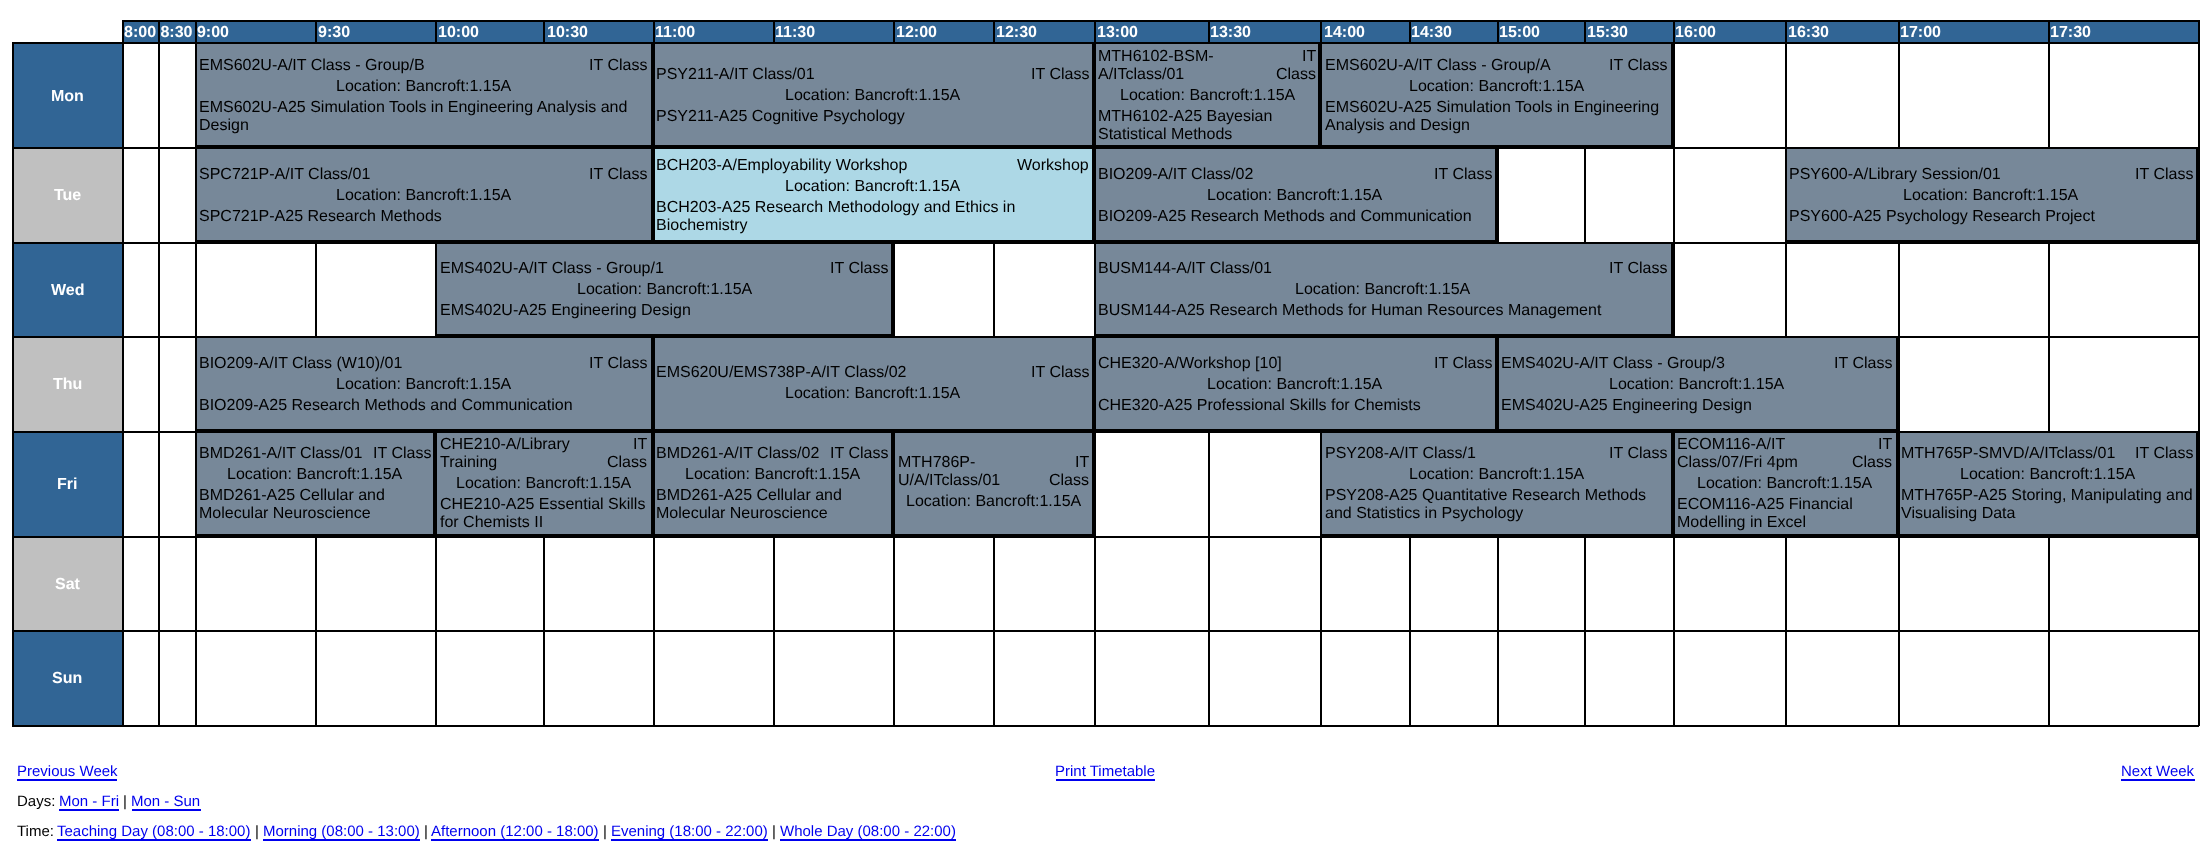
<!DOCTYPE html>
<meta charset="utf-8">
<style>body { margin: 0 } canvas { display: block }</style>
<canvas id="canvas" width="2210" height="857"></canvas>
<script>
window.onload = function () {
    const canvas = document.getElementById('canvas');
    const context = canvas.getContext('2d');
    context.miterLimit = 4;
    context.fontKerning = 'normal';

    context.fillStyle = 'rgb(255, 255, 255)';
    context.fillRect(0, 0, 2210, 857);
    context.fillStyle = 'rgb(0, 0, 0)';
    context.fillRect(2198, 20, 2, 706);
    context.fillRect(12, 725, 2187, 2);
    context.fillStyle = 'rgb(49, 101, 149)';
    context.fillRect(160, 22, 35, 20);
    context.fillStyle = 'rgb(0, 0, 0)';
    context.fillRect(122, 20, 2076, 2);
    context.fillRect(158, 20, 2, 22);
    context.fillStyle = 'rgb(49, 101, 149)';
    context.fillRect(197, 22, 118, 20);
    context.fillStyle = 'rgb(0, 0, 0)';
    context.fillRect(195, 20, 2, 22);
    context.fillStyle = 'rgb(49, 101, 149)';
    context.fillRect(124, 22, 34, 20);
    context.fillStyle = 'rgb(0, 0, 0)';
    context.fillRect(122, 20, 2, 22);
    context.fillStyle = 'rgb(49, 101, 149)';
    context.fillRect(317, 22, 118, 20);
    context.fillStyle = 'rgb(0, 0, 0)';
    context.fillRect(315, 20, 2, 22);
    context.fillStyle = 'rgb(49, 101, 149)';
    context.fillRect(437, 22, 106, 20);
    context.fillStyle = 'rgb(0, 0, 0)';
    context.fillRect(435, 20, 2, 22);
    context.fillStyle = 'rgb(49, 101, 149)';
    context.fillRect(545, 22, 108, 20);
    context.fillStyle = 'rgb(0, 0, 0)';
    context.fillRect(543, 20, 2, 22);
    context.fillStyle = 'rgb(49, 101, 149)';
    context.fillRect(655, 22, 118, 20);
    context.fillStyle = 'rgb(0, 0, 0)';
    context.fillRect(653, 20, 2, 22);
    context.fillStyle = 'rgb(49, 101, 149)';
    context.fillRect(775, 22, 118, 20);
    context.fillStyle = 'rgb(0, 0, 0)';
    context.fillRect(773, 20, 2, 22);
    context.fillStyle = 'rgb(49, 101, 149)';
    context.fillRect(895, 22, 98, 20);
    context.fillStyle = 'rgb(0, 0, 0)';
    context.fillRect(893, 20, 2, 22);
    context.fillStyle = 'rgb(49, 101, 149)';
    context.fillRect(995, 22, 99, 20);
    context.fillStyle = 'rgb(0, 0, 0)';
    context.fillRect(993, 20, 2, 22);
    context.fillStyle = 'rgb(49, 101, 149)';
    context.fillRect(1096, 22, 112, 20);
    context.fillStyle = 'rgb(0, 0, 0)';
    context.fillRect(1094, 20, 2, 22);
    context.fillStyle = 'rgb(49, 101, 149)';
    context.fillRect(1210, 22, 110, 20);
    context.fillStyle = 'rgb(0, 0, 0)';
    context.fillRect(1208, 20, 2, 22);
    context.fillStyle = 'rgb(49, 101, 149)';
    context.fillRect(1322, 22, 87, 20);
    context.fillStyle = 'rgb(0, 0, 0)';
    context.fillRect(1320, 20, 2, 22);
    context.fillStyle = 'rgb(49, 101, 149)';
    context.fillRect(1411, 22, 86, 20);
    context.fillStyle = 'rgb(0, 0, 0)';
    context.fillRect(1409, 20, 2, 22);
    context.fillStyle = 'rgb(49, 101, 149)';
    context.fillRect(1499, 22, 85, 20);
    context.fillStyle = 'rgb(0, 0, 0)';
    context.fillRect(1497, 20, 2, 22);
    context.fillStyle = 'rgb(49, 101, 149)';
    context.fillRect(1586, 22, 87, 20);
    context.fillStyle = 'rgb(0, 0, 0)';
    context.fillRect(1584, 20, 2, 22);
    context.fillStyle = 'rgb(49, 101, 149)';
    context.fillRect(1675, 22, 110, 20);
    context.fillStyle = 'rgb(0, 0, 0)';
    context.fillRect(1673, 20, 2, 22);
    context.fillStyle = 'rgb(49, 101, 149)';
    context.fillRect(1787, 22, 111, 20);
    context.fillStyle = 'rgb(0, 0, 0)';
    context.fillRect(1785, 20, 2, 22);
    context.fillStyle = 'rgb(49, 101, 149)';
    context.fillRect(1900, 22, 148, 20);
    context.fillStyle = 'rgb(0, 0, 0)';
    context.fillRect(1898, 20, 2, 22);
    context.fillStyle = 'rgb(49, 101, 149)';
    context.fillRect(2050, 22, 148, 20);
    context.fillStyle = 'rgb(0, 0, 0)';
    context.fillRect(2048, 20, 2, 22);
    context.fillRect(12, 42, 183, 2);
    context.fillRect(122, 42, 2, 105);
    context.fillRect(158, 42, 2, 105);
    context.fillRect(1673, 42, 525, 2);
    context.fillRect(1673, 42, 2, 105);
    context.fillStyle = 'rgb(49, 101, 149)';
    context.fillRect(14, 44, 108, 103);
    context.fillStyle = 'rgb(0, 0, 0)';
    context.fillRect(12, 42, 2, 105);
    context.fillStyle = 'rgb(119, 136, 153)';
    context.beginPath();
    context.rect(196, 43, 456, 103);
    context.fill();
    context.strokeStyle = 'rgb(0, 0, 0)';
    context.lineWidth = 2;
    context.stroke();
    context.beginPath();
    context.rect(654, 43, 439, 103);
    context.fill();
    context.stroke();
    context.beginPath();
    context.rect(1095, 43, 224, 103);
    context.fill();
    context.stroke();
    context.beginPath();
    context.rect(1321, 43, 351, 103);
    context.fill();
    context.stroke();
    context.fillStyle = 'rgb(0, 0, 0)';
    context.fillRect(1785, 42, 2, 105);
    context.fillRect(1898, 42, 2, 105);
    context.fillRect(2048, 42, 2, 105);
    context.fillRect(12, 147, 183, 2);
    context.fillRect(122, 147, 2, 95);
    context.fillRect(158, 147, 2, 95);
    context.fillRect(1497, 147, 288, 2);
    context.fillRect(1497, 147, 2, 95);
    context.fillStyle = 'rgb(192, 192, 192)';
    context.fillRect(14, 149, 108, 93);
    context.fillStyle = 'rgb(0, 0, 0)';
    context.fillRect(12, 147, 2, 95);
    context.fillStyle = 'rgb(119, 136, 153)';
    context.beginPath();
    context.rect(196, 148, 456, 93);
    context.fill();
    context.stroke();
    context.fillStyle = 'rgb(173, 216, 230)';
    context.beginPath();
    context.rect(654, 148, 439, 93);
    context.fill();
    context.stroke();
    context.fillStyle = 'rgb(119, 136, 153)';
    context.beginPath();
    context.rect(1095, 148, 401, 93);
    context.fill();
    context.stroke();
    context.fillStyle = 'rgb(0, 0, 0)';
    context.fillRect(1584, 147, 2, 95);
    context.fillRect(1673, 147, 2, 95);
    context.fillStyle = 'rgb(119, 136, 153)';
    context.beginPath();
    context.rect(1786, 148, 411, 93);
    context.fill();
    context.stroke();
    context.fillStyle = 'rgb(0, 0, 0)';
    context.fillRect(12, 242, 423, 2);
    context.fillRect(122, 242, 2, 94);
    context.fillRect(158, 242, 2, 94);
    context.fillRect(195, 242, 2, 94);
    context.fillRect(315, 242, 2, 94);
    context.fillRect(893, 242, 201, 2);
    context.fillRect(893, 242, 2, 94);
    context.fillRect(993, 242, 2, 94);
    context.fillRect(1673, 242, 525, 2);
    context.fillRect(1673, 242, 2, 94);
    context.fillStyle = 'rgb(49, 101, 149)';
    context.fillRect(14, 244, 108, 92);
    context.fillStyle = 'rgb(0, 0, 0)';
    context.fillRect(12, 242, 2, 94);
    context.fillStyle = 'rgb(119, 136, 153)';
    context.beginPath();
    context.rect(436, 243, 456, 92);
    context.fill();
    context.stroke();
    context.beginPath();
    context.rect(1095, 243, 577, 92);
    context.fill();
    context.stroke();
    context.fillStyle = 'rgb(0, 0, 0)';
    context.fillRect(1785, 242, 2, 94);
    context.fillRect(1898, 242, 2, 94);
    context.fillRect(2048, 242, 2, 94);
    context.fillRect(12, 336, 183, 2);
    context.fillRect(122, 336, 2, 95);
    context.fillRect(158, 336, 2, 95);
    context.fillRect(1898, 336, 300, 2);
    context.fillRect(1898, 336, 2, 95);
    context.fillStyle = 'rgb(192, 192, 192)';
    context.fillRect(14, 338, 108, 93);
    context.fillStyle = 'rgb(0, 0, 0)';
    context.fillRect(12, 336, 2, 95);
    context.fillStyle = 'rgb(119, 136, 153)';
    context.beginPath();
    context.rect(196, 337, 456, 93);
    context.fill();
    context.stroke();
    context.beginPath();
    context.rect(654, 337, 439, 93);
    context.fill();
    context.stroke();
    context.beginPath();
    context.rect(1095, 337, 401, 93);
    context.fill();
    context.stroke();
    context.beginPath();
    context.rect(1498, 337, 399, 93);
    context.fill();
    context.stroke();
    context.fillStyle = 'rgb(0, 0, 0)';
    context.fillRect(2048, 336, 2, 95);
    context.fillRect(12, 431, 183, 2);
    context.fillRect(122, 431, 2, 105);
    context.fillRect(158, 431, 2, 105);
    context.fillRect(1094, 431, 226, 2);
    context.fillRect(1094, 431, 2, 105);
    context.fillStyle = 'rgb(49, 101, 149)';
    context.fillRect(14, 433, 108, 103);
    context.fillStyle = 'rgb(0, 0, 0)';
    context.fillRect(12, 431, 2, 105);
    context.fillStyle = 'rgb(119, 136, 153)';
    context.beginPath();
    context.rect(196, 432, 238, 103);
    context.fill();
    context.stroke();
    context.beginPath();
    context.rect(436, 432, 216, 103);
    context.fill();
    context.stroke();
    context.beginPath();
    context.rect(654, 432, 238, 103);
    context.fill();
    context.stroke();
    context.beginPath();
    context.rect(894, 432, 199, 103);
    context.fill();
    context.stroke();
    context.fillStyle = 'rgb(0, 0, 0)';
    context.fillRect(1208, 431, 2, 105);
    context.fillStyle = 'rgb(119, 136, 153)';
    context.beginPath();
    context.rect(1321, 432, 351, 103);
    context.fill();
    context.stroke();
    context.beginPath();
    context.rect(1674, 432, 223, 103);
    context.fill();
    context.stroke();
    context.beginPath();
    context.rect(1899, 432, 298, 103);
    context.fill();
    context.stroke();
    context.fillStyle = 'rgb(192, 192, 192)';
    context.fillRect(14, 538, 108, 92);
    context.fillStyle = 'rgb(0, 0, 0)';
    context.fillRect(12, 536, 2186, 2);
    context.fillRect(12, 536, 2, 94);
    context.fillRect(122, 536, 2, 94);
    context.fillRect(158, 536, 2, 94);
    context.fillRect(195, 536, 2, 94);
    context.fillRect(315, 536, 2, 94);
    context.fillRect(435, 536, 2, 94);
    context.fillRect(543, 536, 2, 94);
    context.fillRect(653, 536, 2, 94);
    context.fillRect(773, 536, 2, 94);
    context.fillRect(893, 536, 2, 94);
    context.fillRect(993, 536, 2, 94);
    context.fillRect(1094, 536, 2, 94);
    context.fillRect(1208, 536, 2, 94);
    context.fillRect(1320, 536, 2, 94);
    context.fillRect(1409, 536, 2, 94);
    context.fillRect(1497, 536, 2, 94);
    context.fillRect(1584, 536, 2, 94);
    context.fillRect(1673, 536, 2, 94);
    context.fillRect(1785, 536, 2, 94);
    context.fillRect(1898, 536, 2, 94);
    context.fillRect(2048, 536, 2, 94);
    context.fillStyle = 'rgb(49, 101, 149)';
    context.fillRect(14, 632, 108, 93);
    context.fillStyle = 'rgb(0, 0, 0)';
    context.fillRect(12, 630, 2186, 2);
    context.fillRect(12, 630, 2, 95);
    context.fillRect(122, 630, 2, 95);
    context.fillRect(158, 630, 2, 95);
    context.fillRect(195, 630, 2, 95);
    context.fillRect(315, 630, 2, 95);
    context.fillRect(435, 630, 2, 95);
    context.fillRect(543, 630, 2, 95);
    context.fillRect(653, 630, 2, 95);
    context.fillRect(773, 630, 2, 95);
    context.fillRect(893, 630, 2, 95);
    context.fillRect(993, 630, 2, 95);
    context.fillRect(1094, 630, 2, 95);
    context.fillRect(1208, 630, 2, 95);
    context.fillRect(1320, 630, 2, 95);
    context.fillRect(1409, 630, 2, 95);
    context.fillRect(1497, 630, 2, 95);
    context.fillRect(1584, 630, 2, 95);
    context.fillRect(1673, 630, 2, 95);
    context.fillRect(1785, 630, 2, 95);
    context.fillRect(1898, 630, 2, 95);
    context.fillRect(2048, 630, 2, 95);
    context.fillStyle = 'rgb(0, 0, 238)';
    context.fillRect(17, 779, 100, 2);
    context.fillRect(1056, 779, 99, 2);
    context.fillRect(2121, 779, 74, 2);
    context.fillRect(59, 809, 60, 2);
    context.fillRect(132, 809, 69, 2);
    context.fillRect(57, 839, 194, 2);
    context.fillRect(263, 839, 157, 2);
    context.fillRect(431, 839, 168, 2);
    context.fillRect(611, 839, 157, 2);
    context.fillRect(780, 839, 176, 2);
    context.font = 'bold 16px Liberation Sans';
    context.fillStyle = 'rgb(255, 255, 255)';
    context.fillText('8:00 8:30 9:00', 124, 37);
    context.fillText('9:30', 318, 37);
    context.fillText('10:00', 438, 37);
    context.fillText('10:30', 547, 37);
    context.fillText('11:00', 655, 37);
    context.fillText('11:30', 775, 37);
    context.fillText('12:00', 896, 37);
    context.fillText('12:30', 996, 37);
    context.fillText('13:00', 1097, 37);
    context.fillText('13:30', 1210, 37);
    context.fillText('14:00', 1324, 37);
    context.fillText('14:30', 1411, 37);
    context.fillText('15:00', 1499, 37);
    context.fillText('15:30', 1587, 37);
    context.fillText('16:00', 1675, 37);
    context.fillText('16:30', 1788, 37);
    context.fillText('17:00', 1900, 37);
    context.fillText('17:30', 2050, 37);
    context.fillText('Mon', 51, 101);
    context.font = '16px Liberation Sans';
    context.fillStyle = 'rgb(0, 0, 0)';
    context.fillText('EMS602U-A/IT Class - Group/B', 199, 70);
    context.fillText('IT Class', 589, 70);
    context.fillText('Location: Bancroft:1.15A', 336, 91);
    context.fillText('EMS602U-A25 Simulation Tools in Engineering Analysis and', 199, 112);
    context.fillText('Design', 199, 130);
    context.fillText('PSY211-A/IT Class/01', 656, 79);
    context.fillText('IT Class', 1031, 79);
    context.fillText('Location: Bancroft:1.15A', 785, 100);
    context.fillText('PSY211-A25 Cognitive Psychology', 656, 121);
    context.fillText('MTH6102-BSM-', 1098, 61);
    context.fillText('A/ITclass/01', 1098, 79);
    context.fillText('IT', 1302, 61);
    context.fillText('Class', 1276, 79);
    context.fillText('Location: Bancroft:1.15A', 1120, 100);
    context.fillText('MTH6102-A25 Bayesian', 1098, 121);
    context.fillText('Statistical Methods', 1098, 139);
    context.fillText('EMS602U-A/IT Class - Group/A', 1325, 70);
    context.fillText('IT Class', 1609, 70);
    context.fillText('Location: Bancroft:1.15A', 1409, 91);
    context.fillText('EMS602U-A25 Simulation Tools in Engineering', 1325, 112);
    context.fillText('Analysis and Design', 1325, 130);
    context.font = 'bold 16px Liberation Sans';
    context.fillStyle = 'rgb(255, 255, 255)';
    context.fillText('Tue', 54, 200);
    context.font = '16px Liberation Sans';
    context.fillStyle = 'rgb(0, 0, 0)';
    context.fillText('SPC721P-A/IT Class/01', 199, 179);
    context.fillText('IT Class', 589, 179);
    context.fillText('Location: Bancroft:1.15A', 336, 200);
    context.fillText('SPC721P-A25 Research Methods', 199, 221);
    context.fillText('BCH203-A/Employability Workshop', 656, 170);
    context.fillText('Workshop', 1017, 170);
    context.fillText('Location: Bancroft:1.15A', 785, 191);
    context.fillText('BCH203-A25 Research Methodology and Ethics in', 656, 212);
    context.fillText('Biochemistry', 656, 230);
    context.fillText('BIO209-A/IT Class/02', 1098, 179);
    context.fillText('IT Class', 1434, 179);
    context.fillText('Location: Bancroft:1.15A', 1207, 200);
    context.fillText('BIO209-A25 Research Methods and Communication', 1098, 221);
    context.fillText('PSY600-A/Library Session/01', 1789, 179);
    context.fillText('IT Class', 2135, 179);
    context.fillText('Location: Bancroft:1.15A', 1903, 200);
    context.fillText('PSY600-A25 Psychology Research Project', 1789, 221);
    context.font = 'bold 16px Liberation Sans';
    context.fillStyle = 'rgb(255, 255, 255)';
    context.fillText('Wed', 51, 295);
    context.font = '16px Liberation Sans';
    context.fillStyle = 'rgb(0, 0, 0)';
    context.fillText('EMS402U-A/IT Class - Group/1', 440, 273);
    context.fillText('IT Class', 830, 273);
    context.fillText('Location: Bancroft:1.15A', 577, 294);
    context.fillText('EMS402U-A25 Engineering Design', 440, 315);
    context.fillText('BUSM144-A/IT Class/01', 1098, 273);
    context.fillText('IT Class', 1609, 273);
    context.fillText('Location: Bancroft:1.15A', 1295, 294);
    context.fillText('BUSM144-A25 Research Methods for Human Resources Management', 1098, 315);
    context.font = 'bold 16px Liberation Sans';
    context.fillStyle = 'rgb(255, 255, 255)';
    context.fillText('Thu', 53, 389);
    context.font = '16px Liberation Sans';
    context.fillStyle = 'rgb(0, 0, 0)';
    context.fillText('BIO209-A/IT Class (W10)/01', 199, 368);
    context.fillText('IT Class', 589, 368);
    context.fillText('Location: Bancroft:1.15A', 336, 389);
    context.fillText('BIO209-A25 Research Methods and Communication', 199, 410);
    context.fillText('EMS620U/EMS738P-A/IT Class/02', 656, 377);
    context.fillText('IT Class', 1031, 377);
    context.fillText('Location: Bancroft:1.15A', 785, 398);
    context.fillText('CHE320-A/Workshop [10]', 1098, 368);
    context.fillText('IT Class', 1434, 368);
    context.fillText('Location: Bancroft:1.15A', 1207, 389);
    context.fillText('CHE320-A25 Professional Skills for Chemists', 1098, 410);
    context.fillText('EMS402U-A/IT Class - Group/3', 1501, 368);
    context.fillText('IT Class', 1834, 368);
    context.fillText('Location: Bancroft:1.15A', 1609, 389);
    context.fillText('EMS402U-A25 Engineering Design', 1501, 410);
    context.font = 'bold 16px Liberation Sans';
    context.fillStyle = 'rgb(255, 255, 255)';
    context.fillText('Fri', 57, 489);
    context.font = '16px Liberation Sans';
    context.fillStyle = 'rgb(0, 0, 0)';
    context.fillText('BMD261-A/IT Class/01', 199, 458);
    context.fillText('IT Class', 373, 458);
    context.fillText('Location: Bancroft:1.15A', 227, 479);
    context.fillText('BMD261-A25 Cellular and', 199, 500);
    context.fillText('Molecular Neuroscience', 199, 518);
    context.fillText('CHE210-A/Library', 440, 449);
    context.fillText('Training', 440, 467);
    context.fillText('IT', 633, 449);
    context.fillText('Class', 607, 467);
    context.fillText('Location: Bancroft:1.15A', 456, 488);
    context.fillText('CHE210-A25 Essential Skills', 440, 509);
    context.fillText('for Chemists II', 440, 527);
    context.fillText('BMD261-A/IT Class/02', 656, 458);
    context.fillText('IT Class', 830, 458);
    context.fillText('Location: Bancroft:1.15A', 685, 479);
    context.fillText('BMD261-A25 Cellular and', 656, 500);
    context.fillText('Molecular Neuroscience', 656, 518);
    context.fillText('MTH786P-', 898, 467);
    context.fillText('U/A/ITclass/01', 898, 485);
    context.fillText('IT', 1075, 467);
    context.fillText('Class', 1049, 485);
    context.fillText('Location: Bancroft:1.15A', 906, 506);
    context.fillText('PSY208-A/IT Class/1', 1325, 458);
    context.fillText('IT Class', 1609, 458);
    context.fillText('Location: Bancroft:1.15A', 1409, 479);
    context.fillText('PSY208-A25 Quantitative Research Methods', 1325, 500);
    context.fillText('and Statistics in Psychology', 1325, 518);
    context.fillText('ECOM116-A/IT', 1677, 449);
    context.fillText('Class/07/Fri 4pm', 1677, 467);
    context.fillText('IT', 1878, 449);
    context.fillText('Class', 1852, 467);
    context.fillText('Location: Bancroft:1.15A', 1697, 488);
    context.fillText('ECOM116-A25 Financial', 1677, 509);
    context.fillText('Modelling in Excel', 1677, 527);
    context.fillText('MTH765P-SMVD/A/ITclass/01', 1901, 458);
    context.fillText('IT Class', 2135, 458);
    context.fillText('Location: Bancroft:1.15A', 1960, 479);
    context.fillText('MTH765P-A25 Storing, Manipulating and', 1901, 500);
    context.fillText('Visualising Data', 1901, 518);
    context.font = 'bold 16px Liberation Sans';
    context.fillStyle = 'rgb(255, 255, 255)';
    context.fillText('Sat', 55, 589);
    context.fillText('Sun', 52, 683);
    context.font = '15px Liberation Sans';
    context.fillStyle = 'rgb(0, 0, 238)';
    context.fillText('Previous Week', 17, 776);
    context.fillText('Print Timetable', 1055, 776);
    context.fillText('Next Week', 2121, 776);
    context.fillStyle = 'rgb(0, 0, 0)';
    context.fillText('Days:', 17, 806);
    context.fillStyle = 'rgb(0, 0, 238)';
    context.fillText('Mon - Fri', 59, 806);
    context.fillStyle = 'rgb(0, 0, 0)';
    context.fillText('|', 123, 806);
    context.fillStyle = 'rgb(0, 0, 238)';
    context.fillText('Mon - Sun', 131, 806);
    context.fillStyle = 'rgb(0, 0, 0)';
    context.fillText('Time:', 17, 836);
    context.fillStyle = 'rgb(0, 0, 238)';
    context.fillText('Teaching Day (08:00 - 18:00)', 57, 836);
    context.fillStyle = 'rgb(0, 0, 0)';
    context.fillText('|', 255, 836);
    context.fillStyle = 'rgb(0, 0, 238)';
    context.fillText('Morning (08:00 - 13:00)', 263, 836);
    context.fillStyle = 'rgb(0, 0, 0)';
    context.fillText('|', 424, 836);
    context.fillStyle = 'rgb(0, 0, 238)';
    context.fillText('Afternoon (12:00 - 18:00)', 431, 836);
    context.fillStyle = 'rgb(0, 0, 0)';
    context.fillText('|', 603, 836);
    context.fillStyle = 'rgb(0, 0, 238)';
    context.fillText('Evening (18:00 - 22:00)', 611, 836);
    context.fillStyle = 'rgb(0, 0, 0)';
    context.fillText('|', 772, 836);
    context.fillStyle = 'rgb(0, 0, 238)';
    context.fillText('Whole Day (08:00 - 22:00)', 780, 836);
};
</script>
